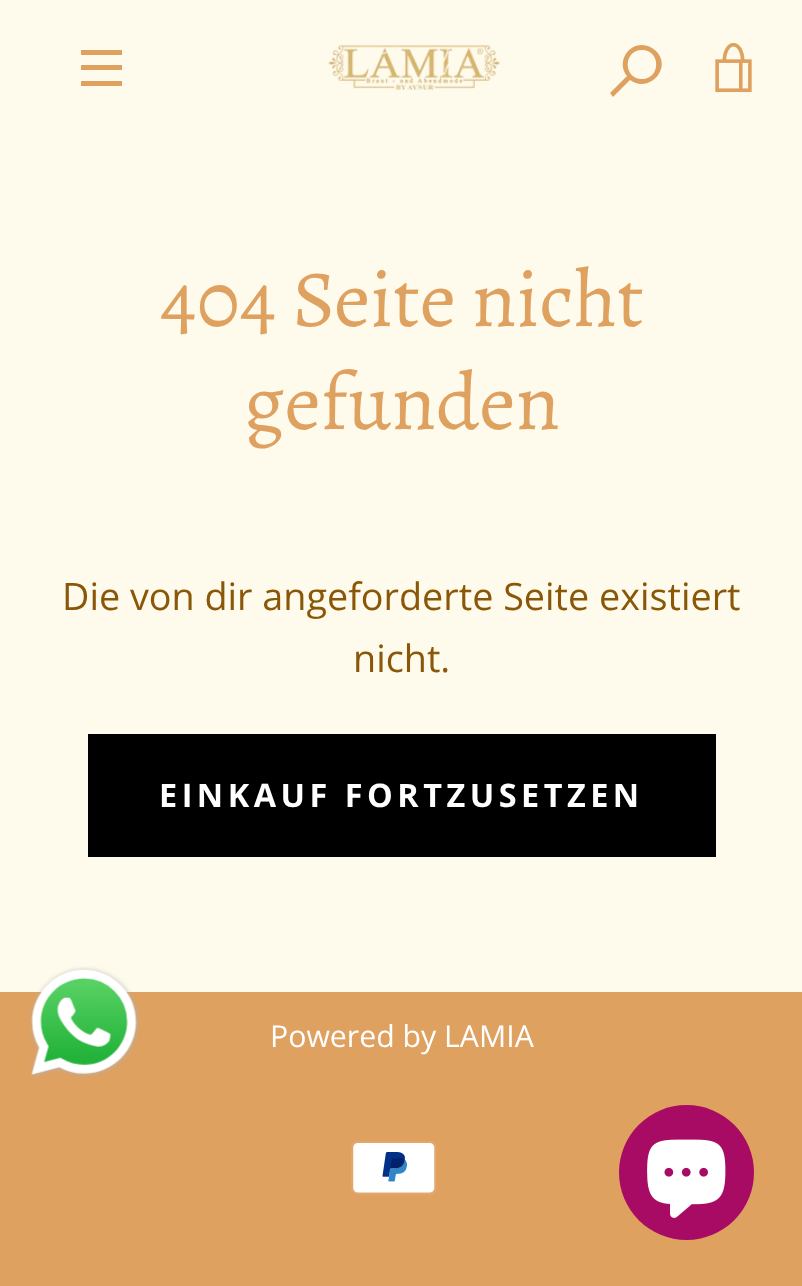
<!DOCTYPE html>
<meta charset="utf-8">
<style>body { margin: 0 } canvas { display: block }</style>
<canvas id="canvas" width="802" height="1286"></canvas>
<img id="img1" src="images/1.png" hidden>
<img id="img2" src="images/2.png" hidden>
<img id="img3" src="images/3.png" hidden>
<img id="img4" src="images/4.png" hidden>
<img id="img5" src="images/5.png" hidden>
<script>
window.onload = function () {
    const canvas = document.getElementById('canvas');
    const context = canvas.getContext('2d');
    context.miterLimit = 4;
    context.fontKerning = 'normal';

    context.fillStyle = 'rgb(223, 161, 96)';
    context.fillRect(0, 0, 802, 1286);
    context.fillStyle = 'rgb(255, 251, 236)';
    context.fillRect(0, 0, 802, 992);
    context.fillStyle = 'rgb(223, 161, 96)';
    context.fillRect(81, 50, 41, 5);
    context.fillRect(81, 65, 41, 5);
    context.fillRect(81, 81, 41, 5);
    context.drawImage(document.getElementById('img1'), 328, 45, 172, 45);
    context.beginPath();
    context.moveTo(642, 45);
    context.bezierCurveTo(626, 45, 617, 64, 627, 76);
    context.lineTo(610, 93);
    context.lineTo(613, 97);
    context.lineTo(630, 80);
    context.bezierCurveTo(649, 94, 673, 68, 656, 51);
    context.bezierCurveTo(652, 47, 647, 45, 642, 45);
    context.closePath();
    context.moveTo(642, 79);
    context.bezierCurveTo(623, 79, 623, 50, 642, 50);
    context.bezierCurveTo(661, 50, 661, 79, 642, 79);
    context.closePath();
    context.fill();
    context.drawImage(document.getElementById('img2'), 715, 42, 37, 51);
    context.fillStyle = 'rgb(0, 0, 0)';
    context.fillRect(88, 734, 628, 123);
    context.drawImage(document.getElementById('img3'), 351, 1141, 86, 54);
    context.drawImage(document.getElementById('img4'), 29, 966, 112, 112);
    context.fillStyle = 'rgb(168, 11, 100)';
    context.beginPath();
    context.arc(686.5, 1172.5, 67.5, 0, 2 * Math.PI);
    context.fill();
    context.drawImage(document.getElementById('img5'), 647, 1139, 79, 79);
    context.font = '81px Alegreya';
    context.fillStyle = 'rgb(223, 161, 96)';
    context.fillText('404 Seite nicht', 160, 326);
    context.fillText('gefunden', 244, 429);
    context.font = '37.75px Open Sans';
    context.fillStyle = 'rgb(137, 87, 7)';
    context.fillText('Die von dir angeforderte Seite existiert', 62, 610);
    context.fillText('nicht.', 353, 672);
    context.letterSpacing = '4.5px';
    context.font = 'bold 32.4px Open Sans';
    context.fillStyle = 'rgb(255, 255, 255)';
    context.fillText('EINKAUF FORTZUSETZEN', 159, 807);
    context.letterSpacing = '0px';
    context.font = '30.25px Open Sans';
    context.fillText('Powered by LAMIA', 270, 1047);
};
</script>
